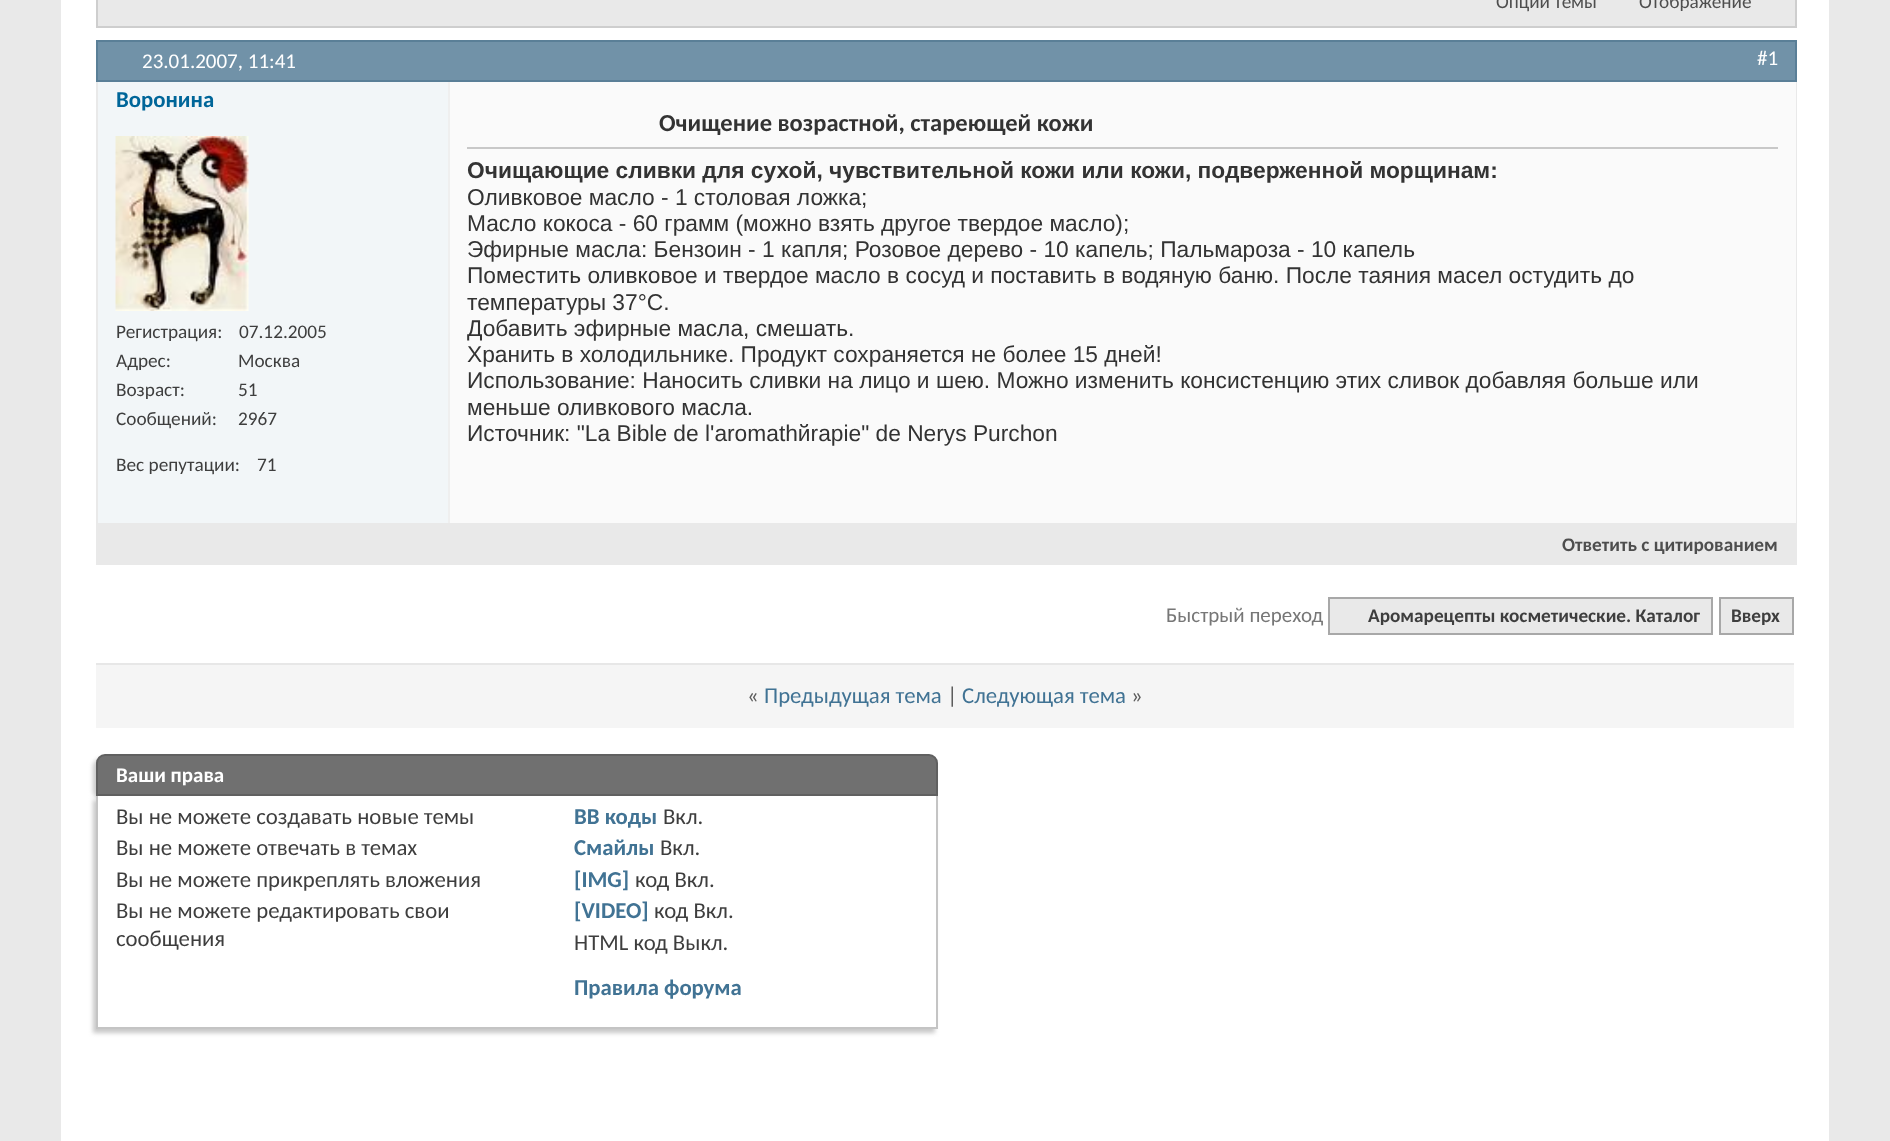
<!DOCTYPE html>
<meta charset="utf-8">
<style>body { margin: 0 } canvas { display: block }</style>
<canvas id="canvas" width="1890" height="1141"></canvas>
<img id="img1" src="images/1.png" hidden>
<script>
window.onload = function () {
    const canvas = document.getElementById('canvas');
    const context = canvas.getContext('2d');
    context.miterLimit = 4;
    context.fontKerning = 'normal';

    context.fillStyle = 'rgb(233, 233, 233)';
    context.fillRect(0, 0, 1890, 1141);
    context.fillStyle = 'rgb(255, 255, 255)';
    context.fillRect(61, 0, 1768, 1141);
    context.fillStyle = 'rgb(233, 233, 233)';
    context.beginPath();
    context.rect(97, -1, 1699, 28);
    context.fill();
    context.strokeStyle = 'rgb(206, 206, 206)';
    context.lineWidth = 2;
    context.stroke();
    context.strokeStyle = 'rgb(233, 233, 233)';
    context.strokeRect(97, 41, 1699, 523);
    context.fillStyle = 'rgb(113, 146, 168)';
    context.beginPath();
    context.rect(97, 41, 1699, 40);
    context.fill();
    context.strokeStyle = 'rgb(90, 127, 151)';
    context.stroke();
    context.fillStyle = 'rgb(242, 246, 248)';
    context.fillRect(98, 82, 350, 441);
    context.drawImage(document.getElementById('img1'), 115, 136, 134, 175);
    context.fillStyle = 'rgb(250, 250, 250)';
    context.fillRect(450, 82, 1346, 441);
    context.fillStyle = 'rgb(239, 239, 239)';
    context.fillRect(448, 82, 2, 441);
    context.fillStyle = 'rgb(200, 200, 200)';
    context.fillRect(467, 147, 1311, 2);
    context.fillStyle = 'rgb(233, 233, 233)';
    context.fillRect(98, 523, 1697, 40);
    context.beginPath();
    context.rect(1329, 598, 383, 36);
    context.fill();
    context.strokeStyle = 'rgb(168, 168, 168)';
    context.stroke();
    context.beginPath();
    context.rect(1720, 598, 73, 36);
    context.fill();
    context.stroke();
    context.fillStyle = 'rgb(245, 245, 245)';
    context.fillRect(96, 665, 1698, 63);
    context.fillStyle = 'rgb(231, 231, 231)';
    context.fillRect(96, 663, 1698, 2);
    context.fillStyle = 'rgb(200, 200, 200)';
    context.filter = 'blur(2px)';
    context.beginPath();
    context.roundRect(93, 758, 842, 42, 9);
    context.fill();
    context.filter = 'none';
    context.fillStyle = 'rgb(112, 112, 112)';
    context.beginPath();
    context.roundRect(97, 755, 840, 40, [8, 8, 0, 0]);
    context.fill();
    context.strokeStyle = 'rgb(96, 96, 96)';
    context.stroke();
    context.fillStyle = 'rgb(200, 200, 200)';
    context.filter = 'blur(2px)';
    context.beginPath();
    context.rect(93, 800, 842, 233);
    context.fill();
    context.filter = 'none';
    context.fillStyle = 'rgb(255, 255, 255)';
    context.fillRect(98, 796, 838, 231);
    context.fillStyle = 'rgb(196, 196, 196)';
    context.fillRect(936, 796, 2, 233);
    context.fillRect(96, 1027, 842, 2);
    context.fillRect(96, 796, 2, 233);
    context.font = '19.25px Carlito';
    context.fillStyle = 'rgb(78, 78, 78)';
    context.fillText('Опции темы', 1496, 8);
    context.fillText('Отображение', 1639, 8);
    context.font = '21px Carlito';
    context.fillStyle = 'rgb(255, 255, 255)';
    context.fillText('23.01.2007, 11:41', 142, 68);
    context.fillText('#1', 1757, 65);
    context.font = 'bold 22.75px Carlito';
    context.fillStyle = 'rgb(0, 102, 153)';
    context.fillText('Воронина', 116, 107);
    context.font = '19.25px Carlito';
    context.fillStyle = 'rgb(62, 62, 62)';
    context.fillText('Регистрация:', 116, 338);
    context.fillText('07.12.2005', 239, 338);
    context.fillText('Адрес:', 116, 367);
    context.fillText('Москва', 238, 367);
    context.fillText('Возраст:', 116, 396);
    context.fillText('51', 238, 396);
    context.fillText('Сообщений:', 116, 425);
    context.fillText('2967', 238, 425);
    context.fillText('Вес репутации:', 116, 471);
    context.fillText('71', 257, 471);
    context.font = 'bold 24.5px Carlito';
    context.fillStyle = 'rgb(51, 51, 51)';
    context.fillText('Очищение возрастной, стареющей кожи', 659, 131);
    context.font = 'bold 22.75px Liberation Sans';
    context.fillText('Очищающие сливки для сухой, чувствительной кожи или кожи, подверженной морщинам:', 467, 178);
    context.font = '22.75px Liberation Sans';
    context.fillText('Оливковое масло - 1 столовая ложка;', 467, 205);
    context.fillText('Масло кокоса - 60 грамм (можно взять другое твердое масло);', 467, 231);
    context.fillText('Эфирные масла: Бензоин - 1 капля; Розовое дерево - 10 капель; Пальмароза - 10 капель', 467, 257);
    context.fillText('Поместить оливковое и твердое масло в сосуд и поставить в водяную баню. После таяния масел остудить до', 467, 283);
    context.fillText('температуры 37°C.', 467, 310);
    context.fillText('Добавить эфирные масла, смешать.', 467, 336);
    context.fillText('Хранить в холодильнике. Продукт сохраняется не более 15 дней!', 467, 362);
    context.fillText('Использование: Наносить сливки на лицо и шею. Можно изменить консистенцию этих сливок добавляя больше или', 467, 388);
    context.fillText('меньше оливкового масла.', 467, 415);
    context.fillText('Источник: "La Bible de l\'aromathйrapie" de Nerys Purchon', 467, 441);
    context.font = 'bold 19.25px Carlito';
    context.fillStyle = 'rgb(78, 78, 78)';
    context.fillText('Ответить с цитированием', 1562, 551);
    context.font = '21px Carlito';
    context.fillStyle = 'rgb(119, 119, 119)';
    context.fillText('Быстрый переход', 1166, 622);
    context.font = 'bold 19.25px Carlito';
    context.fillStyle = 'rgb(62, 62, 62)';
    context.fillText('Аромарецепты косметические. Каталог', 1368, 622);
    context.fillText('Вверх', 1731, 622);
    context.font = '22.75px Carlito';
    context.fillStyle = 'rgb(93, 93, 93)';
    context.fillText('«', 747, 703);
    context.fillStyle = 'rgb(65, 115, 148)';
    context.fillText('Предыдущая тема', 764, 703);
    context.fillStyle = 'rgb(93, 93, 93)';
    context.fillText('|', 947, 703);
    context.fillStyle = 'rgb(65, 115, 148)';
    context.fillText('Следующая тема', 962, 703);
    context.fillStyle = 'rgb(93, 93, 93)';
    context.fillText('»', 1131, 703);
    context.font = 'bold 21px Carlito';
    context.fillStyle = 'rgb(255, 255, 255)';
    context.fillText('Ваши права', 116, 782);
    context.font = '22.75px Carlito';
    context.fillStyle = 'rgb(62, 62, 62)';
    context.fillText('Вы не можете создавать новые темы', 116, 824);
    context.fillText('Вы не можете отвечать в темах', 116, 855);
    context.fillText('Вы не можете прикреплять вложения', 116, 887);
    context.fillText('Вы не можете редактировать свои', 116, 918);
    context.fillText('сообщения', 116, 946);
    context.font = 'bold 22.75px Carlito';
    context.fillStyle = 'rgb(65, 115, 148)';
    context.fillText('BB коды', 574, 824);
    context.font = '22.75px Carlito';
    context.fillStyle = 'rgb(62, 62, 62)';
    context.fillText('Вкл.', 663, 824);
    context.font = 'bold 22.75px Carlito';
    context.fillStyle = 'rgb(65, 115, 148)';
    context.fillText('Смайлы', 574, 855);
    context.font = '22.75px Carlito';
    context.fillStyle = 'rgb(62, 62, 62)';
    context.fillText('Вкл.', 660, 855);
    context.font = 'bold 22.75px Carlito';
    context.fillStyle = 'rgb(65, 115, 148)';
    context.fillText('[IMG]', 574, 887);
    context.font = '22.75px Carlito';
    context.fillStyle = 'rgb(62, 62, 62)';
    context.fillText('код Вкл.', 635, 887);
    context.font = 'bold 22.75px Carlito';
    context.fillStyle = 'rgb(65, 115, 148)';
    context.fillText('[VIDEO]', 574, 918);
    context.font = '22.75px Carlito';
    context.fillStyle = 'rgb(62, 62, 62)';
    context.fillText('код Вкл.', 654, 918);
    context.fillText('HTML код Выкл.', 574, 950);
    context.font = 'bold 22.75px Carlito';
    context.fillStyle = 'rgb(65, 115, 148)';
    context.fillText('Правила форума', 574, 995);
};
</script>
